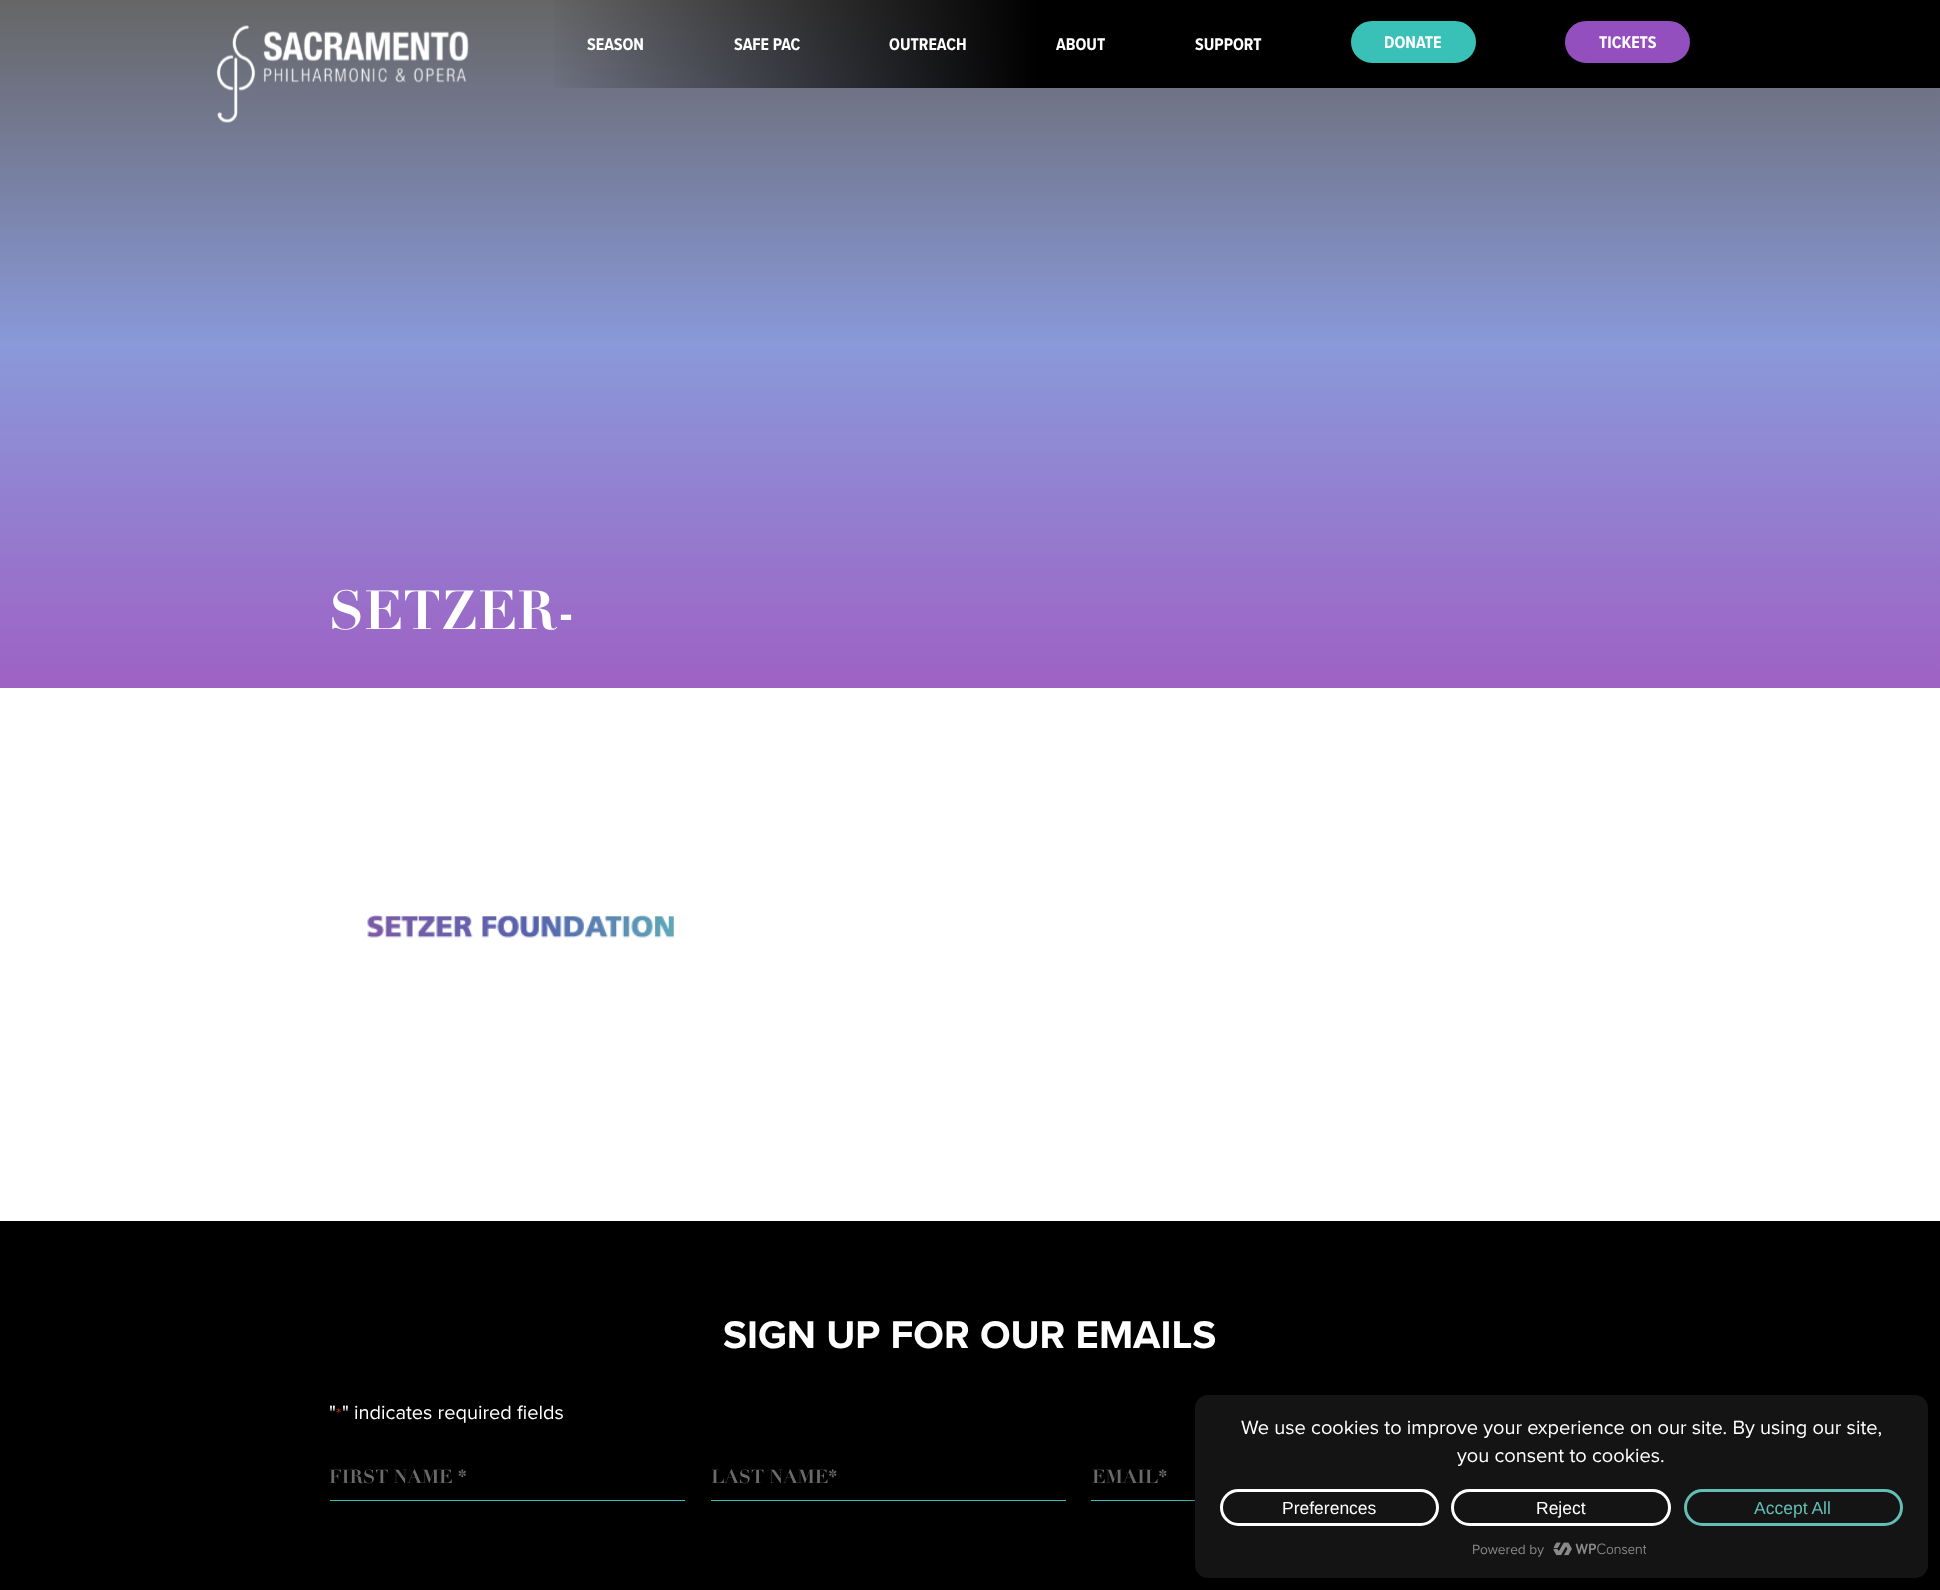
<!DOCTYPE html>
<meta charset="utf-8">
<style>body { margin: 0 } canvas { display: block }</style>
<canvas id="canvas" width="1940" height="1590"></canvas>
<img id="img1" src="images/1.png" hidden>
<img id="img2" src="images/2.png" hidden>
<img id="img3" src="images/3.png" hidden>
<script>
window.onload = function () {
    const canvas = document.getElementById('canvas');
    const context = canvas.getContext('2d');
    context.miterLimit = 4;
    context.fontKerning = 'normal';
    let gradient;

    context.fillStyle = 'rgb(255, 255, 255)';
    context.fillRect(0, 0, 1940, 1590);
    gradient = context.createLinearGradient(970, 0, 970, 688);
    gradient.addColorStop(0, 'rgb(102, 102, 102)');
    gradient.addColorStop(0.5, 'rgb(137, 153, 217)');
    gradient.addColorStop(1, 'rgb(158, 97, 196)');
    context.fillStyle = gradient;
    context.fillRect(0, 0, 1940, 688);
    context.drawImage(document.getElementById('img1'), 216, 25, 253, 98);
    gradient = context.createLinearGradient(543, 44, 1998, 44);
    gradient.addColorStop(0, 'rgba(0, 0, 0, 0)');
    gradient.addColorStop(0.34, 'rgb(0, 0, 0)');
    context.fillStyle = gradient;
    context.fillRect(554, 0, 1386, 88);
    context.fillStyle = 'rgb(57, 193, 183)';
    context.beginPath();
    context.roundRect(1352.5, 22.5, 122, 39, 19.5);
    context.fill();
    context.strokeStyle = 'rgb(57, 193, 183)';
    context.lineWidth = 3;
    context.stroke();
    context.fillStyle = 'rgb(147, 79, 189)';
    context.beginPath();
    context.roundRect(1566.5, 22.5, 122, 39, 19.5);
    context.fill();
    context.strokeStyle = 'rgb(147, 79, 189)';
    context.stroke();
    context.drawImage(document.getElementById('img2'), 367, 915, 307, 23);
    context.fillStyle = 'rgb(0, 0, 0)';
    context.fillRect(0, 1221, 1940, 369);
    context.fillStyle = 'rgb(57, 193, 183)';
    context.fillRect(330, 1500, 355, 1);
    context.fillRect(711, 1500, 355, 1);
    context.fillRect(1091, 1500, 104, 1);
    context.fillStyle = 'rgba(0, 0, 0, 0.23)';
    context.filter = 'blur(4px)';
    context.beginPath();
    context.roundRect(1195, 1403, 733, 182, 13);
    context.fill();
    context.filter = 'none';
    context.fillStyle = 'rgba(0, 0, 0, 0.19)';
    context.filter = 'blur(12.5px)';
    context.beginPath();
    context.roundRect(1195, 1408, 733, 182, 13);
    context.fill();
    context.filter = 'none';
    context.fillStyle = 'rgb(20, 20, 20)';
    context.beginPath();
    context.roundRect(1195, 1395, 733, 183, 13);
    context.fill();
    context.beginPath();
    context.roundRect(1221.5, 1490.5, 216, 34, 17);
    context.strokeStyle = 'rgb(255, 255, 255)';
    context.stroke();
    context.beginPath();
    context.roundRect(1452.5, 1490.5, 217, 34, 17);
    context.stroke();
    context.beginPath();
    context.roundRect(1685.5, 1490.5, 216, 34, 17);
    context.strokeStyle = 'rgb(100, 190, 182)';
    context.stroke();
    context.drawImage(document.getElementById('img3'), 1553, 1542, 94, 14);
    context.font = 'bold 17.5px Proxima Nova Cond';
    context.fillStyle = 'rgb(255, 255, 255)';
    context.fillText('SEASON', 587, 50);
    context.fillText('SAFE PAC', 734, 50);
    context.fillText('OUTREACH', 889, 50);
    context.fillText('ABOUT', 1056, 50);
    context.fillText('SUPPORT', 1195, 50);
    context.fillText('DONATE', 1384, 48);
    context.fillText('TICKETS', 1599, 48);
    context.font = 'bold 54px Didot';
    context.fillText('SETZER-', 329, 629);
    context.font = 'bold 40px Proxima Nova';
    context.fillText('SIGN UP FOR OUR EMAILS', 723, 1348);
    context.font = '20px Proxima Nova';
    context.fillText('"', 329, 1419);
    context.font = '16px Proxima Nova';
    context.fillStyle = 'rgb(192, 43, 10)';
    context.fillText('*', 336, 1419);
    context.font = '20px Proxima Nova';
    context.fillStyle = 'rgb(255, 255, 255)';
    context.fillText('" indicates required fields', 342, 1419);
    context.font = 'bold 18.75px Didot';
    context.fillStyle = 'rgb(106, 106, 106)';
    context.fillText('FIRST NAME *', 329, 1483);
    context.fillText('LAST NAME*', 711, 1483);
    context.fillText('EMAIL*', 1092, 1483);
    context.font = '20px Proxima Nova';
    context.fillStyle = 'rgb(255, 255, 255)';
    context.fillText('We use cookies to improve your experience on our site. By using our site,', 1241, 1434);
    context.fillText('you consent to cookies.', 1457, 1462);
    context.font = '17.5px Liberation Sans';
    context.fillText('Preferences', 1282, 1514);
    context.fillText('Reject', 1536, 1514);
    context.fillStyle = 'rgb(100, 190, 182)';
    context.fillText('Accept All', 1754, 1514);
    context.font = '13.75px Proxima Nova';
    context.fillStyle = 'rgb(138, 138, 138)';
    context.fillText('Powered by', 1472, 1554);
};
</script>
